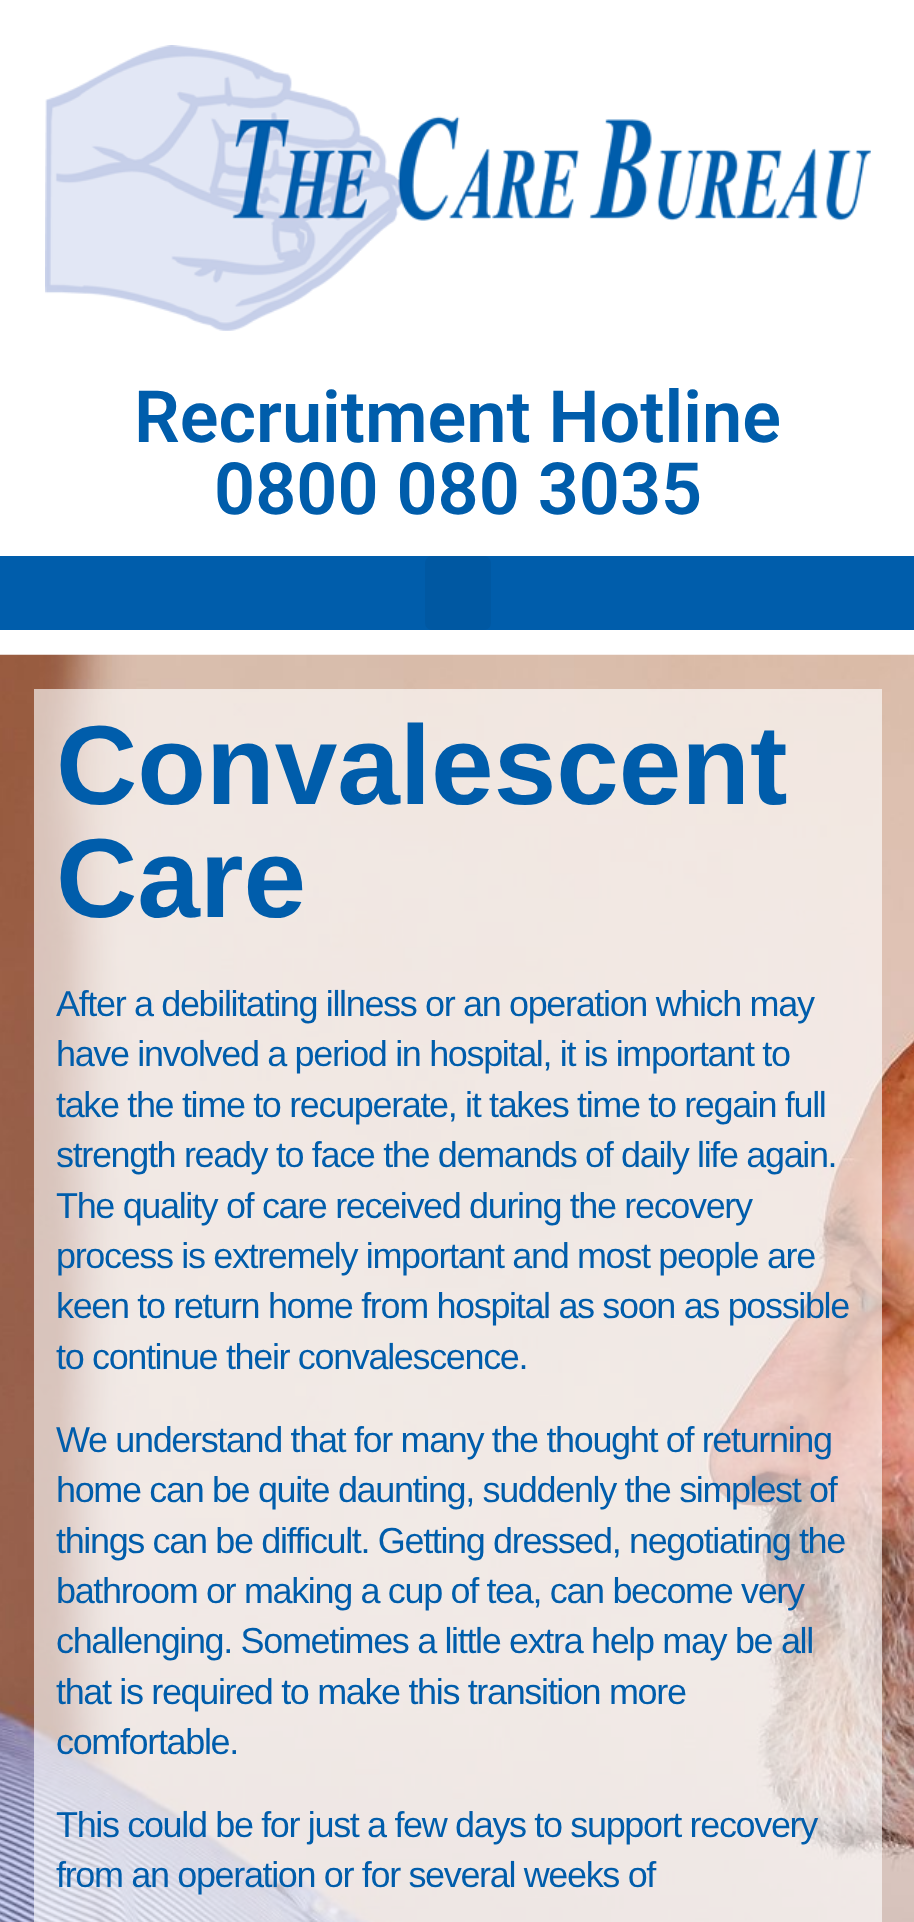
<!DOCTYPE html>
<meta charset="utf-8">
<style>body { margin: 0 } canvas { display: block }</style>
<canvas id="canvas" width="914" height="1922"></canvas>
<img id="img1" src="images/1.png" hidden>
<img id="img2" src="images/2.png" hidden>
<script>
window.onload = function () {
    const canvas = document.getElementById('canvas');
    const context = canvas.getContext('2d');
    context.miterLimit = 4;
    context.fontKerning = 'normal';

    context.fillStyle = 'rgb(255, 255, 255)';
    context.fillRect(0, 0, 914, 1922);
    context.drawImage(document.getElementById('img1'), 45, 45, 826, 286);
    context.fillStyle = 'rgb(0, 93, 171)';
    context.fillRect(0, 556, 914, 74);
    context.fillStyle = 'rgb(0, 88, 162)';
    context.beginPath();
    context.roundRect(425, 556, 66, 74, 7);
    context.fill();
    context.drawImage(document.getElementById('img2'), 0, 654, 914, 1268);
    context.font = '600 72px Roboto';
    context.fillStyle = 'rgb(0, 93, 171)';
    context.fillText('Recruitment Hotline', 134, 442);
    context.fillText('0800 080 3035', 214, 514);
    context.font = 'bold 112.5px Liberation Sans';
    context.fillText('Convalescent', 56, 804);
    context.fillText('Care', 56, 917);
    context.letterSpacing = '-1.35px';
    context.font = '36px Liberation Sans';
    context.fillText('After a debilitating illness or an operation which may', 56, 1016);
    context.fillText('have involved a period in hospital, it is important to', 56, 1066);
    context.fillText('take the time to recuperate, it takes time to regain full', 56, 1117);
    context.fillText('strength ready to face the demands of daily life again.', 56, 1167);
    context.fillText('The quality of care received during the recovery', 56, 1218);
    context.fillText('process is extremely important and most people are', 56, 1268);
    context.fillText('keen to return home from hospital as soon as possible', 56, 1318);
    context.fillText('to continue their convalescence.', 56, 1369);
    context.fillText('We understand that for many the thought of returning', 56, 1452);
    context.fillText('home can be quite daunting, suddenly the simplest of', 56, 1502);
    context.fillText('things can be difficult. Getting dressed, negotiating the', 56, 1553);
    context.fillText('bathroom or making a cup of tea, can become very', 56, 1603);
    context.fillText('challenging. Sometimes a little extra help may be all', 56, 1653);
    context.fillText('that is required to make this transition more', 56, 1704);
    context.fillText('comfortable.', 56, 1754);
    context.fillText('This could be for just a few days to support recovery', 56, 1837);
    context.fillText('from an operation or for several weeks of', 56, 1887);
};
</script>
